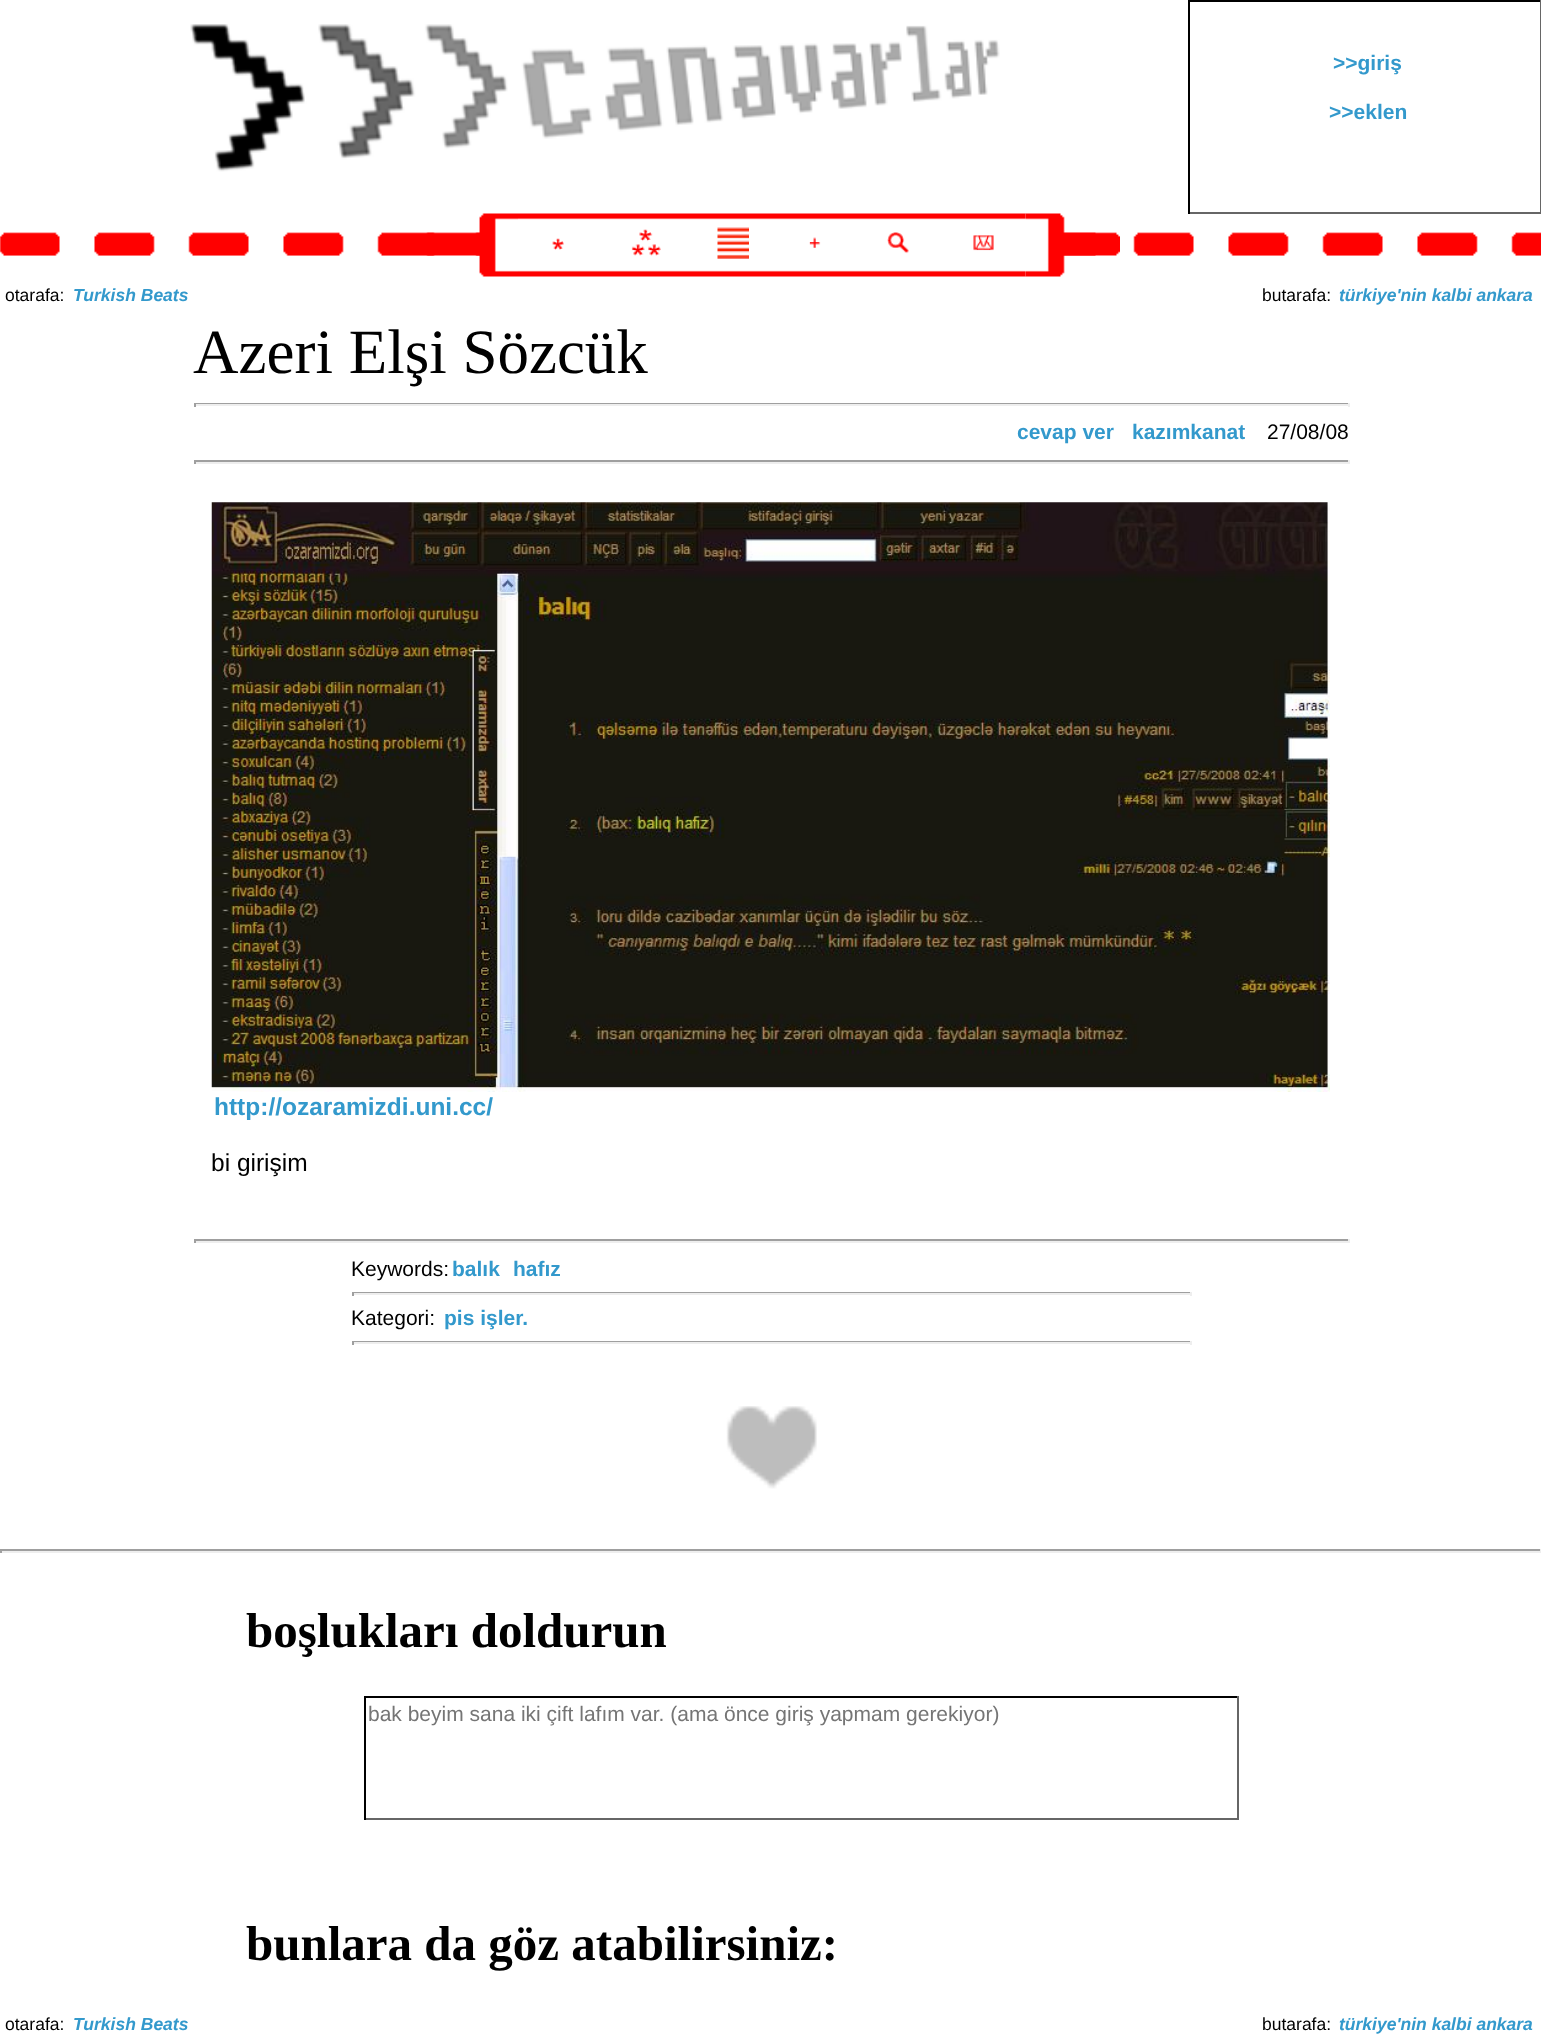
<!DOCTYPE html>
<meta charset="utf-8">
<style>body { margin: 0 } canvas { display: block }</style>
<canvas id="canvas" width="1541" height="2042"></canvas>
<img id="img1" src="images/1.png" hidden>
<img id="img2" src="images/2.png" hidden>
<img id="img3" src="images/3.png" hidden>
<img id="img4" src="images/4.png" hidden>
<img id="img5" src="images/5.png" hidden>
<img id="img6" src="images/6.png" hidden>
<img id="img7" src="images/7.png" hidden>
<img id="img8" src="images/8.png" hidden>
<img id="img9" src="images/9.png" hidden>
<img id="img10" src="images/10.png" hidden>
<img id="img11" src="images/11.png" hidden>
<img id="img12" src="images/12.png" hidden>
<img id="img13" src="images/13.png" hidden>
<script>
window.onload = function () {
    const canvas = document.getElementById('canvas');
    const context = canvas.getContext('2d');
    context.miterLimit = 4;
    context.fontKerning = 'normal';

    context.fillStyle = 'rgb(255, 255, 255)';
    context.fillRect(0, 0, 1541, 2042);
    context.drawImage(document.getElementById('img1'), 190, 24, 810, 148);
    context.fillStyle = 'rgb(0, 0, 0)';
    context.fillRect(1188, 0, 353, 2);
    context.fillStyle = 'rgb(102, 102, 102)';
    context.fillRect(1540, 0, 1, 214);
    context.fillRect(1188, 212, 353, 2);
    context.fillStyle = 'rgb(0, 0, 0)';
    context.fillRect(1188, 0, 2, 214);
    context.drawImage(document.getElementById('img2'), 0, 232, 1541, 24);
    context.drawImage(document.getElementById('img3'), 426, 213, 92, 64);
    context.drawImage(document.getElementById('img4'), 518, 213, 508, 64);
    context.drawImage(document.getElementById('img5'), 552, 238, 12, 12);
    context.drawImage(document.getElementById('img6'), 631, 229, 30, 27);
    context.drawImage(document.getElementById('img7'), 717, 227, 32, 32);
    context.drawImage(document.getElementById('img8'), 809, 237, 12, 11);
    context.drawImage(document.getElementById('img9'), 887, 232, 22, 22);
    context.drawImage(document.getElementById('img10'), 973, 235, 21, 16);
    context.drawImage(document.getElementById('img11'), 1025, 213, 95, 64);
    context.fillStyle = 'rgb(159, 159, 159)';
    context.fillRect(194, 403, 1155, 1);
    context.fillStyle = 'rgb(238, 238, 238)';
    context.fillRect(1348, 403, 2, 4);
    context.fillRect(194, 404, 1155, 2);
    context.fillStyle = 'rgb(159, 159, 159)';
    context.fillRect(194, 403, 2, 4);
    context.fillRect(194, 460, 1155, 2);
    context.fillStyle = 'rgb(238, 238, 238)';
    context.fillRect(1348, 460, 2, 4);
    context.fillRect(194, 462, 1155, 2);
    context.fillStyle = 'rgb(159, 159, 159)';
    context.fillRect(194, 460, 2, 4);
    context.drawImage(document.getElementById('img12'), 211, 502, 1119, 590);
    context.fillRect(194, 1239, 1155, 2);
    context.fillStyle = 'rgb(238, 238, 238)';
    context.fillRect(1348, 1239, 2, 4);
    context.fillRect(194, 1241, 1155, 2);
    context.fillStyle = 'rgb(159, 159, 159)';
    context.fillRect(194, 1239, 2, 4);
    context.fillRect(352, 1292, 840, 1);
    context.fillStyle = 'rgb(238, 238, 238)';
    context.fillRect(1190, 1292, 2, 4);
    context.fillRect(352, 1293, 840, 2);
    context.fillStyle = 'rgb(159, 159, 159)';
    context.fillRect(352, 1292, 2, 4);
    context.fillRect(352, 1341, 840, 1);
    context.fillStyle = 'rgb(238, 238, 238)';
    context.fillRect(1190, 1341, 2, 4);
    context.fillRect(352, 1342, 840, 2);
    context.fillStyle = 'rgb(159, 159, 159)';
    context.fillRect(352, 1341, 2, 4);
    context.drawImage(document.getElementById('img13'), 726, 1406, 91, 83);
    context.fillRect(0, 1549, 1541, 2);
    context.fillStyle = 'rgb(238, 238, 238)';
    context.fillRect(1540, 1549, 1, 4);
    context.fillRect(0, 1551, 1541, 2);
    context.fillStyle = 'rgb(159, 159, 159)';
    context.fillRect(0, 1549, 2, 4);
    context.fillStyle = 'rgb(0, 0, 0)';
    context.fillRect(364, 1696, 875, 2);
    context.fillStyle = 'rgb(102, 102, 102)';
    context.fillRect(1237, 1696, 2, 124);
    context.fillRect(364, 1818, 875, 2);
    context.fillStyle = 'rgb(0, 0, 0)';
    context.fillRect(364, 1696, 2, 124);
    context.font = 'bold 21px Liberation Sans';
    context.fillStyle = 'rgb(51, 153, 204)';
    context.fillText('>>giriş', 1333, 70);
    context.fillText('>>eklen', 1329, 119);
    context.font = '17.5px Liberation Sans';
    context.fillStyle = 'rgb(0, 0, 0)';
    context.fillText('otarafa:', 5, 301);
    context.font = 'italic bold 17.5px Liberation Sans';
    context.fillStyle = 'rgb(51, 153, 204)';
    context.fillText('Turkish Beats', 73, 301);
    context.font = '17.5px Liberation Sans';
    context.fillStyle = 'rgb(0, 0, 0)';
    context.fillText('butarafa:', 1262, 301);
    context.font = 'italic bold 17.5px Liberation Sans';
    context.fillStyle = 'rgb(51, 153, 204)';
    context.fillText('türkiye\'nin kalbi ankara', 1339, 301);
    context.font = '63px Liberation Serif';
    context.fillStyle = 'rgb(0, 0, 0)';
    context.fillText('Azeri Elşi Sözcük', 193, 373);
    context.font = 'bold 21px Liberation Sans';
    context.fillStyle = 'rgb(51, 153, 204)';
    context.fillText('cevap ver', 1017, 439);
    context.fillText('kazımkanat', 1132, 439);
    context.font = '21px Liberation Sans';
    context.fillStyle = 'rgb(0, 0, 0)';
    context.fillText('27/08/08', 1267, 439);
    context.font = 'bold 24.5px Liberation Sans';
    context.fillStyle = 'rgb(51, 153, 204)';
    context.fillText('http://ozaramizdi.uni.cc/', 214, 1115);
    context.font = '24.5px Liberation Sans';
    context.fillStyle = 'rgb(0, 0, 0)';
    context.fillText('bi girişim', 211, 1171);
    context.font = '21px Liberation Sans';
    context.fillText('Keywords:', 351, 1276);
    context.font = 'bold 21px Liberation Sans';
    context.fillStyle = 'rgb(51, 153, 204)';
    context.fillText('balık', 452, 1276);
    context.fillText('hafız', 513, 1276);
    context.font = '21px Liberation Sans';
    context.fillStyle = 'rgb(0, 0, 0)';
    context.fillText('Kategori:', 351, 1325);
    context.font = 'bold 21px Liberation Sans';
    context.fillStyle = 'rgb(51, 153, 204)';
    context.fillText('pis işler.', 444, 1325);
    context.font = 'bold 49px Liberation Serif';
    context.fillStyle = 'rgb(0, 0, 0)';
    context.fillText('boşlukları doldurun', 246, 1647);
    context.font = '21px Liberation Sans';
    context.fillStyle = 'rgb(117, 117, 117)';
    context.fillText('bak beyim sana iki çift lafım var. (ama önce giriş yapmam gerekiyor)', 368, 1721);
    context.font = 'bold 49px Liberation Serif';
    context.fillStyle = 'rgb(0, 0, 0)';
    context.fillText('bunlara da göz atabilirsiniz:', 246, 1960);
    context.font = '17.5px Liberation Sans';
    context.fillText('otarafa:', 5, 2030);
    context.font = 'italic bold 17.5px Liberation Sans';
    context.fillStyle = 'rgb(51, 153, 204)';
    context.fillText('Turkish Beats', 73, 2030);
    context.font = '17.5px Liberation Sans';
    context.fillStyle = 'rgb(0, 0, 0)';
    context.fillText('butarafa:', 1262, 2030);
    context.font = 'italic bold 17.5px Liberation Sans';
    context.fillStyle = 'rgb(51, 153, 204)';
    context.fillText('türkiye\'nin kalbi ankara', 1339, 2030);
};
</script>
